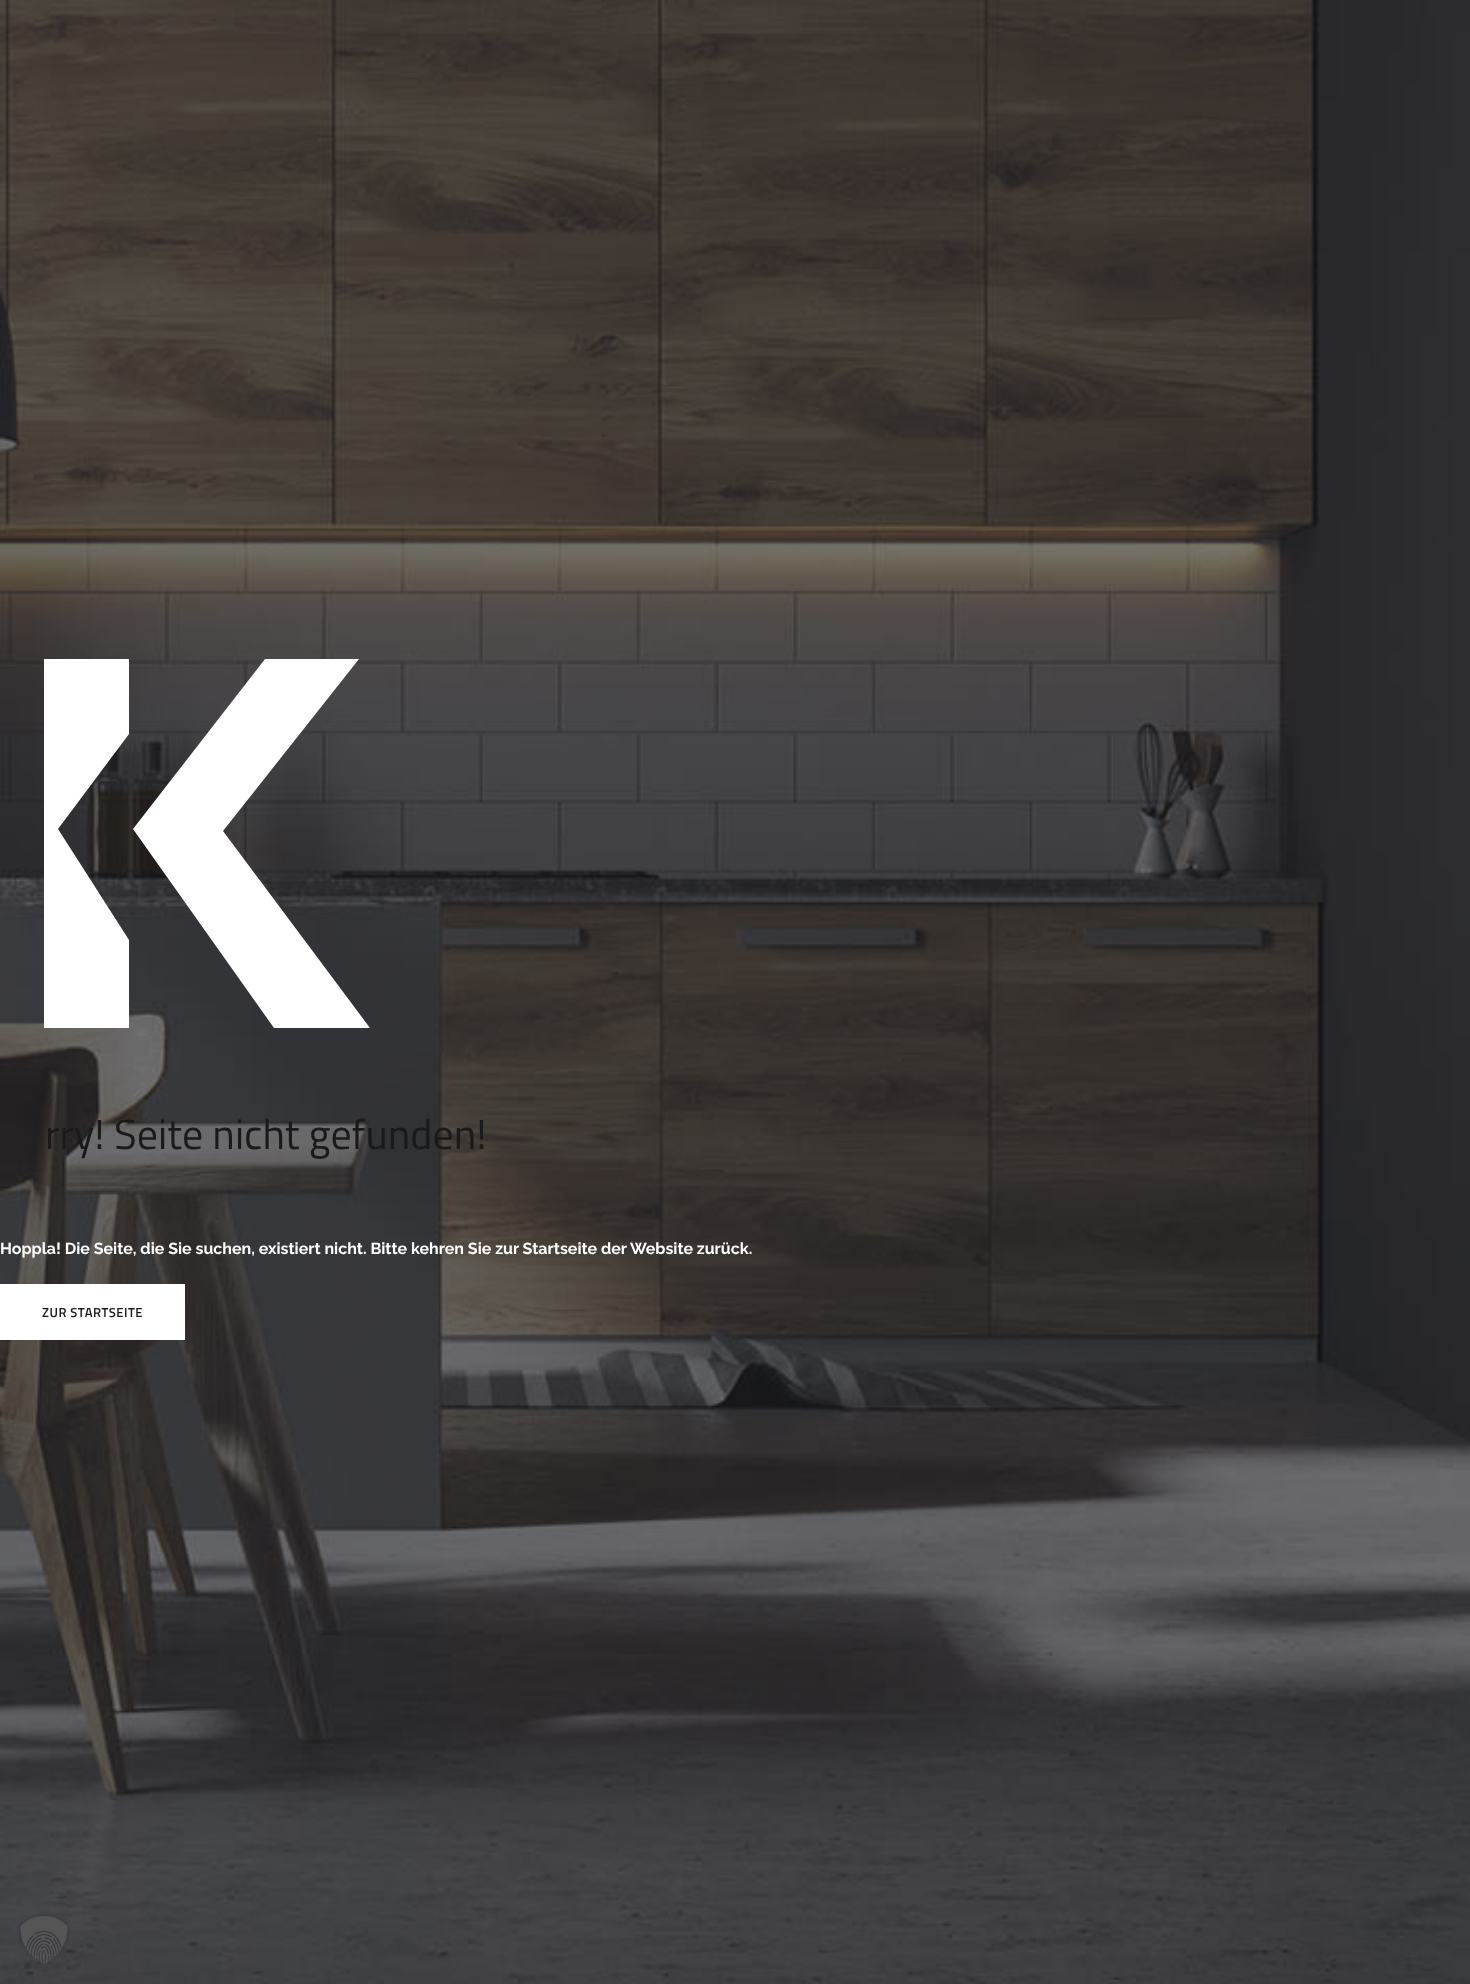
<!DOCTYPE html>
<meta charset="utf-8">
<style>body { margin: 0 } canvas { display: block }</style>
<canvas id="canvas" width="1470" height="1984"></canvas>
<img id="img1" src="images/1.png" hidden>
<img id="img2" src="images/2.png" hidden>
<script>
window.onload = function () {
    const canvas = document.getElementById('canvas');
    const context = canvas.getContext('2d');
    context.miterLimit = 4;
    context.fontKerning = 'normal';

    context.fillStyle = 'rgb(255, 255, 255)';
    context.fillRect(0, 0, 1470, 1984);
    context.drawImage(document.getElementById('img1'), 0, 0, 1470, 1984);
    context.beginPath();
    context.moveTo(44, 659);
    context.lineTo(129, 659);
    context.lineTo(129, 734);
    context.lineTo(58, 829);
    context.lineTo(129, 940);
    context.lineTo(129, 1028);
    context.lineTo(44, 1028);
    context.closePath();
    context.fill();
    context.beginPath();
    context.moveTo(265, 659);
    context.lineTo(359, 659);
    context.lineTo(223, 831);
    context.lineTo(370, 1028);
    context.lineTo(274, 1028);
    context.lineTo(133, 829);
    context.closePath();
    context.fill();
    context.fillRect(0, 1284, 185, 56);
    context.drawImage(document.getElementById('img2'), 19, 1914, 50, 50);
    context.font = '42px Titillium Web';
    context.fillStyle = 'rgb(26, 26, 26)';
    context.fillText('rry! Seite nicht gefunden!', 45, 1149);
    context.font = 'bold 16px Raleway';
    context.fillStyle = 'rgb(255, 255, 255)';
    context.fillText('Hoppla! Die Seite, die Sie suchen, existiert nicht. Bitte kehren Sie zur Startseite der Website zurück.', 0, 1254);
    context.letterSpacing = '0.5px';
    context.font = '600 13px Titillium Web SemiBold';
    context.fillStyle = 'rgb(26, 26, 26)';
    context.fillText('ZUR STARTSEITE', 42, 1317);
};
</script>
